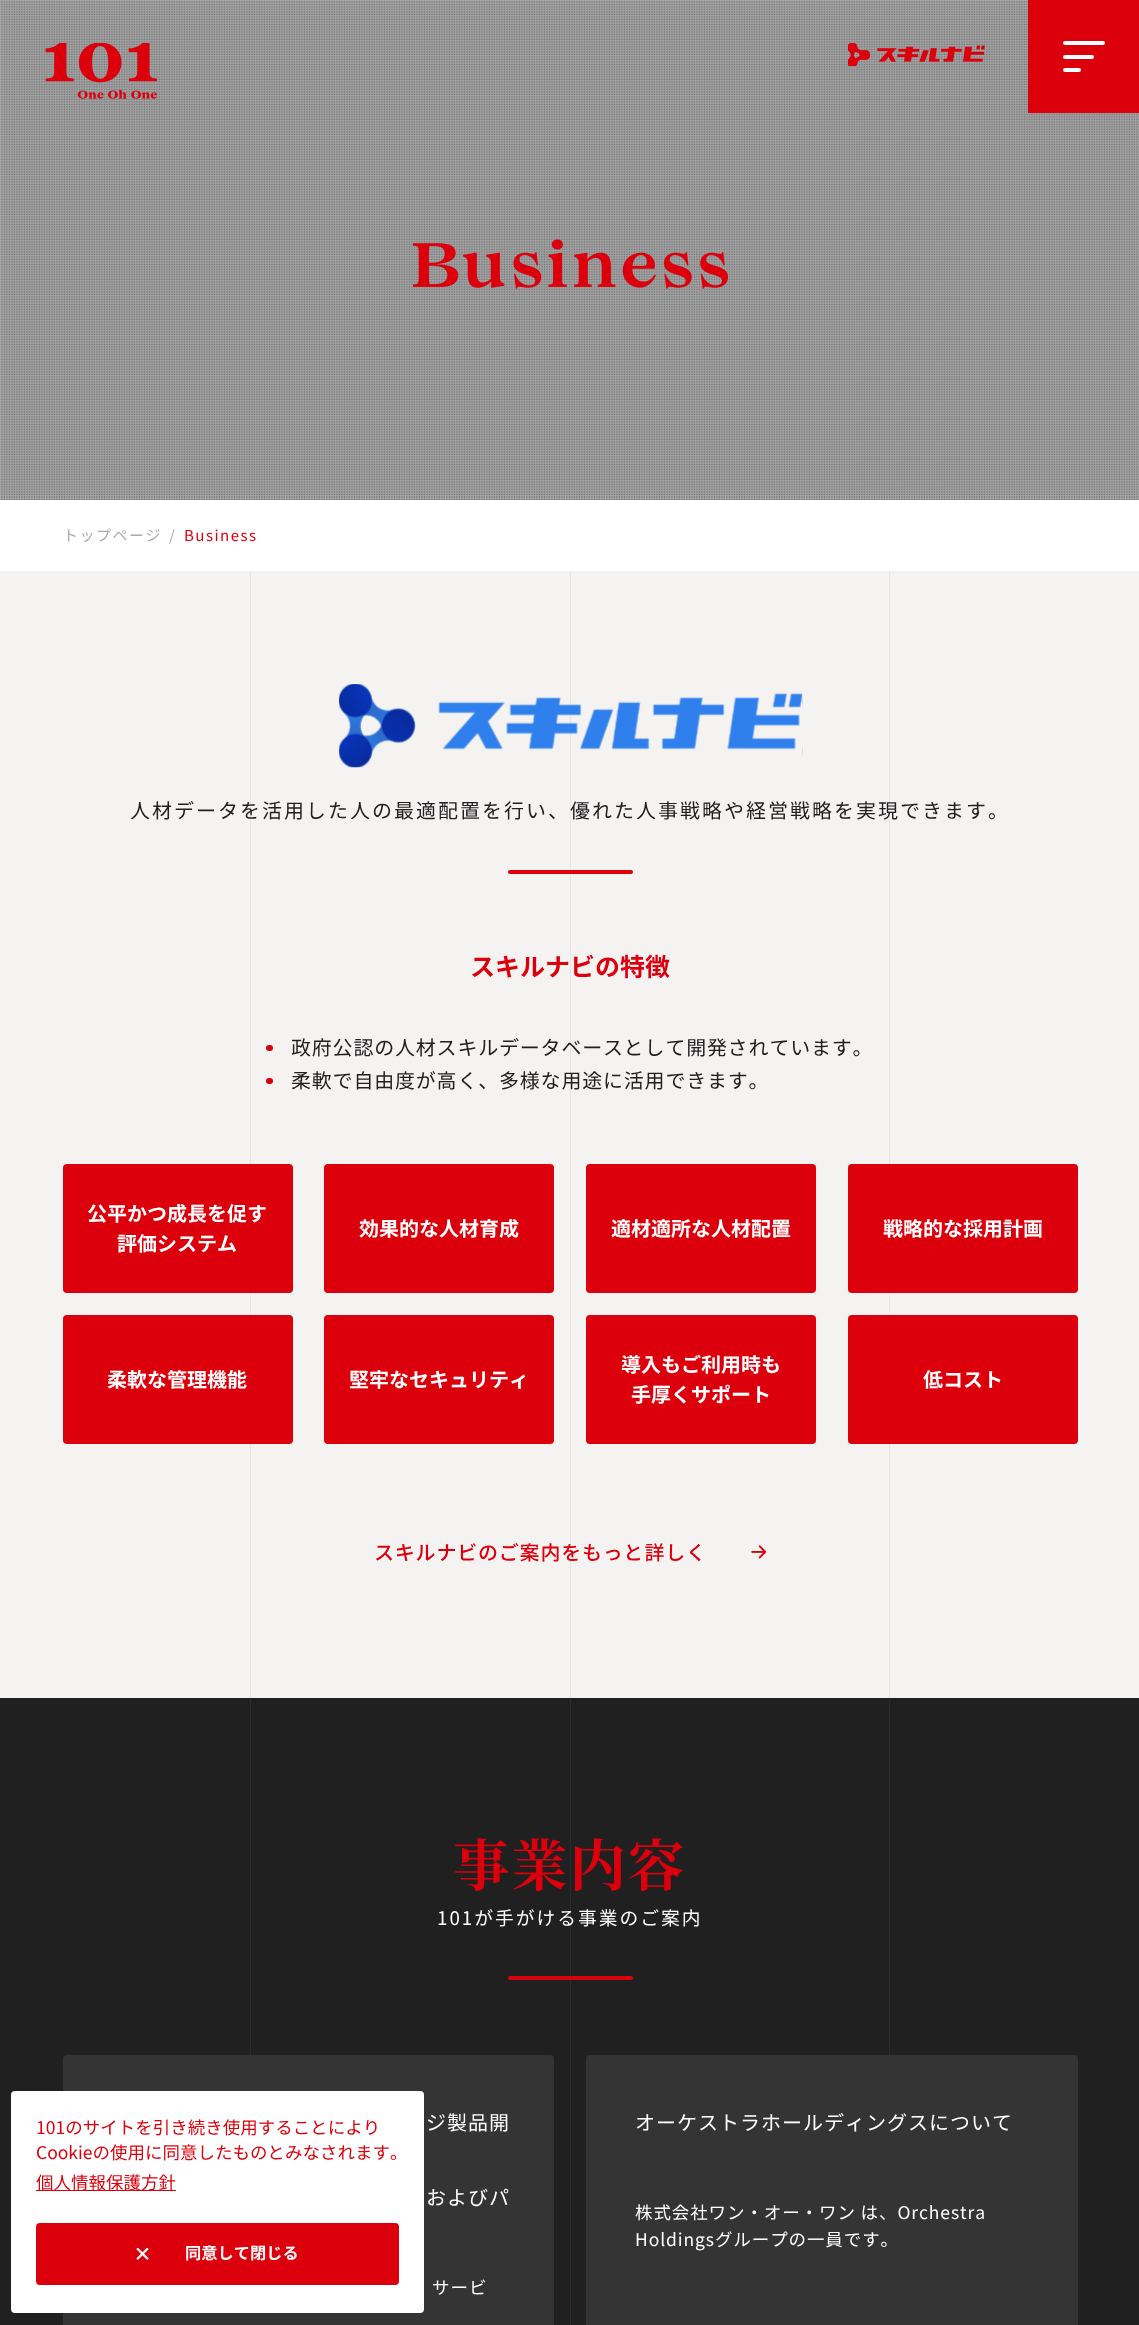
<!DOCTYPE html>
<meta charset="utf-8">
<style>body { margin: 0 } canvas { display: block }</style>
<canvas id="canvas" width="1139" height="2325"></canvas>
<img id="img1" src="images/3.png" hidden>
<img id="img2" src="images/1.png" hidden>
<img id="img3" src="images/2.png" hidden>
<img id="img4" src="images/4.png" hidden>
<img id="img5" src="images/5.png" hidden>
<img id="img6" src="images/6.png" hidden>
<img id="img7" src="images/7.png" hidden>
<script>
window.onload = function () {
    const canvas = document.getElementById('canvas');
    const context = canvas.getContext('2d');
    context.miterLimit = 4;
    context.fontKerning = 'normal';

    context.fillStyle = 'rgb(32, 32, 32)';
    context.fillRect(0, 0, 1139, 2325);
    context.fillStyle = 'rgb(165, 165, 165)';
    context.fillRect(0, 0, 1139, 500);
    context.drawImage(document.getElementById('img1'), 1, 1, 1138, 499);
    context.drawImage(document.getElementById('img2'), 45, 43, 112, 56);
    context.drawImage(document.getElementById('img3'), 848, 43, 137, 23);
    context.fillStyle = 'rgb(220, 0, 12)';
    context.fillRect(1028, 0, 111, 113);
    context.fillStyle = 'rgb(255, 255, 255)';
    context.beginPath();
    context.roundRect(1063, 41, 42, 4, 2);
    context.fill();
    context.beginPath();
    context.roundRect(1063, 55, 31, 4, 2);
    context.fill();
    context.beginPath();
    context.roundRect(1063, 68, 18, 4, 2);
    context.fill();
    context.drawImage(document.getElementById('img4'), 413, 239, 315, 50);
    context.fillRect(0, 500, 1139, 71);
    context.fillStyle = 'rgb(245, 242, 242)';
    context.fillRect(0, 571, 250, 1127);
    context.fillStyle = 'rgb(230, 230, 230)';
    context.fillRect(250, 571, 1, 1127);
    context.fillStyle = 'rgb(245, 242, 242)';
    context.fillRect(251, 571, 319, 1127);
    context.fillStyle = 'rgb(230, 230, 230)';
    context.fillRect(570, 571, 1, 1127);
    context.fillStyle = 'rgb(245, 242, 242)';
    context.fillRect(571, 571, 318, 1127);
    context.fillStyle = 'rgb(230, 230, 230)';
    context.fillRect(889, 571, 1, 1127);
    context.fillStyle = 'rgb(245, 242, 242)';
    context.fillRect(890, 571, 249, 1127);
    context.drawImage(document.getElementById('img5'), 339, 684, 464, 84);
    context.fillStyle = 'rgb(220, 0, 12)';
    context.beginPath();
    context.roundRect(508, 870, 125, 4, 2);
    context.fill();
    context.beginPath();
    context.roundRect(266, 1045, 7, 6, 3);
    context.fill();
    context.beginPath();
    context.roundRect(266, 1078, 7, 6, 3);
    context.fill();
    context.beginPath();
    context.roundRect(63, 1164, 230, 129, 4);
    context.fill();
    context.beginPath();
    context.roundRect(324, 1164, 230, 129, 4);
    context.fill();
    context.beginPath();
    context.roundRect(586, 1164, 230, 129, 4);
    context.fill();
    context.beginPath();
    context.roundRect(848, 1164, 230, 129, 4);
    context.fill();
    context.beginPath();
    context.roundRect(63, 1315, 230, 129, 4);
    context.fill();
    context.beginPath();
    context.roundRect(324, 1315, 230, 129, 4);
    context.fill();
    context.beginPath();
    context.roundRect(586, 1315, 230, 129, 4);
    context.fill();
    context.beginPath();
    context.roundRect(848, 1315, 230, 129, 4);
    context.fill();
    context.drawImage(document.getElementById('img6'), 751, 1545, 15, 14);
    context.fillStyle = 'rgb(44, 44, 44)';
    context.fillRect(250, 1698, 1, 357);
    context.fillRect(570, 1698, 1, 627);
    context.fillRect(889, 1698, 1, 357);
    context.fillStyle = 'rgb(220, 0, 12)';
    context.beginPath();
    context.roundRect(508, 1976, 125, 4, 2);
    context.fill();
    context.fillStyle = 'rgb(52, 52, 52)';
    context.beginPath();
    context.roundRect(63, 2055, 491, 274, 4);
    context.fill();
    context.beginPath();
    context.roundRect(586, 2055, 492, 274, 4);
    context.fill();
    context.fillStyle = 'rgb(255, 255, 255)';
    context.beginPath();
    context.roundRect(11, 2091, 413, 222, 4);
    context.fill();
    context.fillStyle = 'rgb(220, 0, 12)';
    context.fillRect(36, 2190, 140, 1);
    context.beginPath();
    context.roundRect(36, 2223, 363, 62, 4);
    context.fill();
    context.drawImage(document.getElementById('img7'), 136, 2248, 13, 12);
    context.letterSpacing = '1.5px';
    context.font = '15px Noto Sans CJK JP';
    context.fillStyle = 'rgb(170, 170, 170)';
    context.fillText('トップページ', 63, 541);
    context.fillText('/', 169, 541);
    context.fillStyle = 'rgb(220, 0, 12)';
    context.fillText('Business', 184, 541);
    context.letterSpacing = '2px';
    context.font = '20px Noto Sans CJK JP';
    context.fillStyle = 'rgb(32, 32, 32)';
    context.fillText('人材データを活用した人の最適配置を行い、優れた人事戦略や経営戦略を実現できます。', 130, 818);
    context.letterSpacing = '0px';
    context.font = 'bold 25px Noto Sans CJK JP';
    context.fillStyle = 'rgb(220, 0, 12)';
    context.fillText('スキルナビの特徴', 470, 976);
    context.letterSpacing = '0.8px';
    context.font = '20px Noto Sans CJK JP';
    context.fillStyle = 'rgb(32, 32, 32)';
    context.fillText('政府公認の人材スキルデータベースとして開発されています。', 291, 1055);
    context.fillText('柔軟で自由度が高く、多様な用途に活用できます。', 291, 1088);
    context.letterSpacing = '0px';
    context.font = 'bold 20px Noto Sans CJK JP';
    context.fillStyle = 'rgb(255, 255, 255)';
    context.fillText('公平かつ成長を促す', 87, 1221);
    context.fillText('評価システム', 117, 1251);
    context.fillText('効果的な人材育成', 359, 1236);
    context.fillText('適材適所な人材配置', 611, 1236);
    context.fillText('戦略的な採用計画', 883, 1236);
    context.fillText('柔軟な管理機能', 107, 1387);
    context.fillText('堅牢なセキュリティ', 349, 1387);
    context.fillText('導入もご利用時も', 621, 1372);
    context.fillText('手厚くサポート', 631, 1402);
    context.fillText('低コスト', 923, 1387);
    context.letterSpacing = '0.8px';
    context.font = '500 20px Noto Sans CJK JP';
    context.fillStyle = 'rgb(220, 0, 12)';
    context.fillText('スキルナビのご案内をもっと詳しく', 374, 1560);
    context.letterSpacing = '2px';
    context.font = 'bold 56.25px Noto Serif CJK JP';
    context.fillText('事業内容', 453, 1886);
    context.font = '18.75px Noto Sans CJK JP';
    context.fillStyle = 'rgb(255, 255, 255)';
    context.fillText('101が手がける事業のご案内', 437, 1925);
    context.letterSpacing = '1px';
    context.font = '20px Noto Sans CJK JP';
    context.fillText('ジ製品開', 426, 2130);
    context.fillText('およびパ', 426, 2205);
    context.font = '17.5px Noto Sans CJK JP';
    context.fillText('サービ', 432, 2294);
    context.font = '20px Noto Sans CJK JP';
    context.fillText('オーケストラホールディングスについて', 635, 2130);
    context.letterSpacing = '0.9px';
    context.font = '17.5px Noto Sans CJK JP';
    context.fillText('株式会社ワン・オー・ワン は、Orchestra', 635, 2219);
    context.fillText('Holdingsグループの一員です。', 635, 2246);
    context.letterSpacing = '0px';
    context.fillStyle = 'rgb(220, 0, 12)';
    context.fillText('101のサイトを引き続き使用することにより', 36, 2134);
    context.fillText('Cookieの使用に同意したものとみなされます。', 36, 2159);
    context.fillText('個人情報保護方針', 36, 2189);
    context.font = 'bold 16.25px Noto Sans CJK JP';
    context.fillStyle = 'rgb(255, 255, 255)';
    context.fillText('同意して閉じる', 185, 2259);
};
</script>
